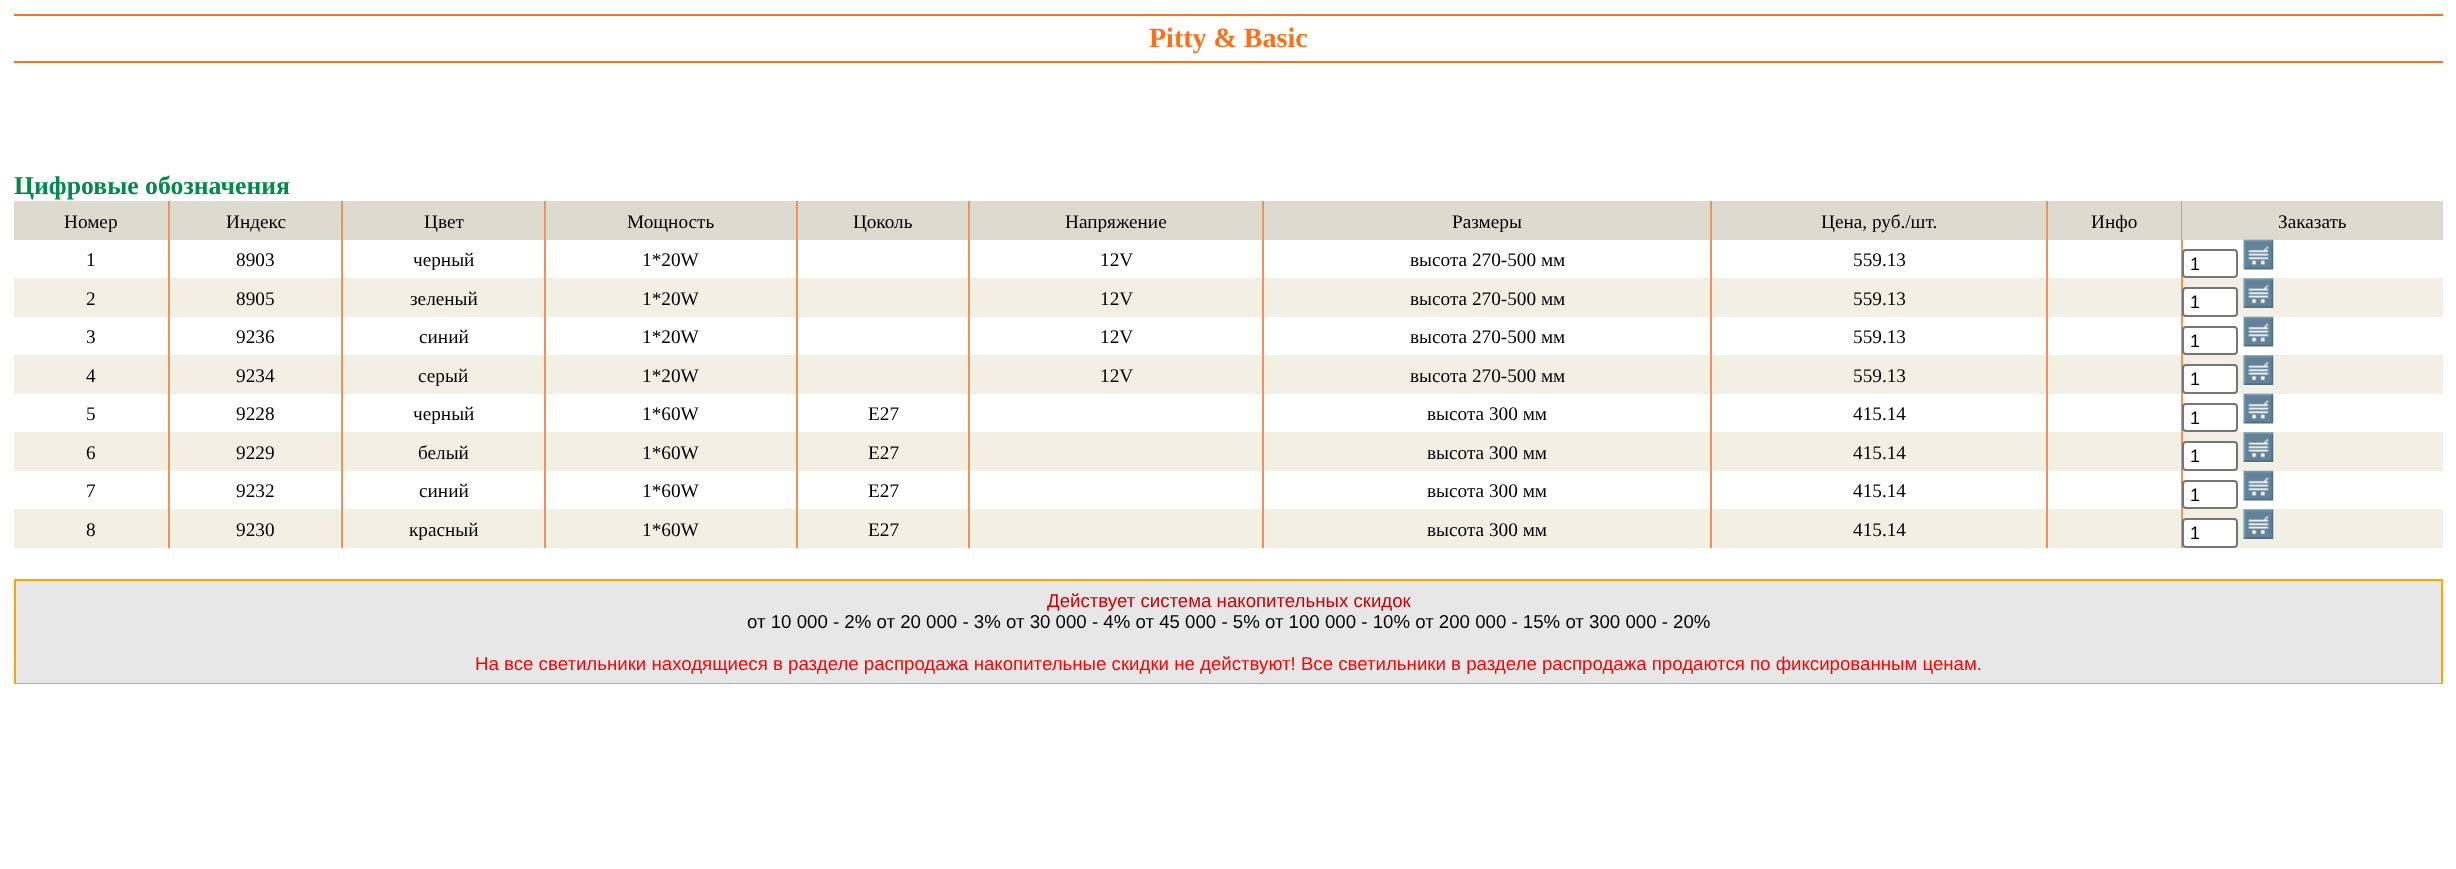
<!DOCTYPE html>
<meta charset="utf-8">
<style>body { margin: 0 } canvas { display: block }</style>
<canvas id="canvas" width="2456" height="869"></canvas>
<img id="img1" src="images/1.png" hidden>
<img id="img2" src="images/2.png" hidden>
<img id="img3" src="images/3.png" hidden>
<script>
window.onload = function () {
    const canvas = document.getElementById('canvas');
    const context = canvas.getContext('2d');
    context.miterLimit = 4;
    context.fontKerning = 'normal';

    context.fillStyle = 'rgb(255, 255, 255)';
    context.fillRect(0, 0, 2456, 869);
    context.fillStyle = 'rgb(254, 112, 24)';
    context.fillRect(14, 14, 2429, 2);
    context.fillRect(14, 61, 2429, 2);
    context.fillStyle = 'rgb(221, 219, 208)';
    context.fillRect(14, 201, 154, 39);
    context.fillStyle = 'rgb(241, 146, 88)';
    context.fillRect(168, 201, 2, 77);
    context.fillStyle = 'rgb(221, 219, 208)';
    context.fillRect(170, 201, 171, 39);
    context.fillStyle = 'rgb(241, 146, 88)';
    context.fillRect(341, 201, 2, 77);
    context.fillStyle = 'rgb(221, 219, 208)';
    context.fillRect(343, 201, 201, 39);
    context.fillStyle = 'rgb(241, 146, 88)';
    context.fillRect(544, 201, 2, 77);
    context.fillStyle = 'rgb(221, 219, 208)';
    context.fillRect(546, 201, 250, 39);
    context.fillStyle = 'rgb(241, 146, 88)';
    context.fillRect(796, 201, 2, 77);
    context.fillStyle = 'rgb(221, 219, 208)';
    context.fillRect(798, 201, 170, 39);
    context.fillStyle = 'rgb(241, 146, 88)';
    context.fillRect(968, 201, 2, 77);
    context.fillStyle = 'rgb(221, 219, 208)';
    context.fillRect(970, 201, 292, 39);
    context.fillStyle = 'rgb(241, 146, 88)';
    context.fillRect(1262, 201, 2, 77);
    context.fillStyle = 'rgb(221, 219, 208)';
    context.fillRect(1264, 201, 446, 39);
    context.fillStyle = 'rgb(241, 146, 88)';
    context.fillRect(1710, 201, 2, 77);
    context.fillStyle = 'rgb(221, 219, 208)';
    context.fillRect(1712, 201, 334, 39);
    context.fillStyle = 'rgb(241, 146, 88)';
    context.fillRect(2046, 201, 2, 77);
    context.fillStyle = 'rgb(221, 219, 208)';
    context.fillRect(2048, 201, 133, 39);
    context.fillStyle = 'rgb(241, 146, 88)';
    context.fillRect(2181, 201, 1, 39);
    context.fillStyle = 'rgb(221, 219, 208)';
    context.fillRect(2182, 201, 261, 39);
    context.fillStyle = 'rgb(241, 146, 88)';
    context.fillRect(2181, 240, 2, 38);
    context.fillStyle = 'rgb(255, 255, 255)';
    context.beginPath();
    context.roundRect(2183, 250, 54, 27, 3);
    context.fill();
    context.strokeStyle = 'rgb(118, 118, 118)';
    context.lineWidth = 2;
    context.stroke();
    context.drawImage(document.getElementById('img1'), 2243, 239, 31, 31);
    context.fillStyle = 'rgb(242, 240, 228)';
    context.fillRect(14, 278, 2429, 39);
    context.fillStyle = 'rgb(241, 146, 88)';
    context.fillRect(168, 278, 2, 77);
    context.fillRect(341, 278, 2, 77);
    context.fillRect(544, 278, 2, 77);
    context.fillRect(796, 278, 2, 77);
    context.fillRect(968, 278, 2, 77);
    context.fillRect(1262, 278, 2, 77);
    context.fillRect(1710, 278, 2, 77);
    context.fillRect(2046, 278, 2, 77);
    context.fillRect(2181, 278, 2, 77);
    context.fillStyle = 'rgb(255, 255, 255)';
    context.beginPath();
    context.roundRect(2183, 288, 54, 28, 3);
    context.fill();
    context.stroke();
    context.drawImage(document.getElementById('img2'), 2243, 278, 31, 30);
    context.beginPath();
    context.roundRect(2183, 327, 54, 27, 3);
    context.fill();
    context.stroke();
    context.drawImage(document.getElementById('img3'), 2243, 316, 31, 31);
    context.fillStyle = 'rgb(242, 240, 228)';
    context.fillRect(14, 355, 2429, 39);
    context.fillStyle = 'rgb(241, 146, 88)';
    context.fillRect(168, 355, 2, 77);
    context.fillRect(341, 355, 2, 77);
    context.fillRect(544, 355, 2, 77);
    context.fillRect(796, 355, 2, 77);
    context.fillRect(968, 355, 2, 77);
    context.fillRect(1262, 355, 2, 77);
    context.fillRect(1710, 355, 2, 77);
    context.fillRect(2046, 355, 2, 77);
    context.fillRect(2181, 355, 2, 77);
    context.fillStyle = 'rgb(255, 255, 255)';
    context.beginPath();
    context.roundRect(2183, 365, 54, 28, 3);
    context.fill();
    context.stroke();
    context.drawImage(document.getElementById('img2'), 2243, 355, 31, 30);
    context.beginPath();
    context.roundRect(2183, 404, 54, 27, 3);
    context.fill();
    context.stroke();
    context.drawImage(document.getElementById('img3'), 2243, 393, 31, 31);
    context.fillStyle = 'rgb(242, 240, 228)';
    context.fillRect(14, 432, 2429, 39);
    context.fillStyle = 'rgb(241, 146, 88)';
    context.fillRect(168, 432, 2, 77);
    context.fillRect(341, 432, 2, 77);
    context.fillRect(544, 432, 2, 77);
    context.fillRect(796, 432, 2, 77);
    context.fillRect(968, 432, 2, 77);
    context.fillRect(1262, 432, 2, 77);
    context.fillRect(1710, 432, 2, 77);
    context.fillRect(2046, 432, 2, 77);
    context.fillRect(2181, 432, 2, 77);
    context.fillStyle = 'rgb(255, 255, 255)';
    context.beginPath();
    context.roundRect(2183, 442, 54, 28, 3);
    context.fill();
    context.stroke();
    context.drawImage(document.getElementById('img2'), 2243, 432, 31, 30);
    context.beginPath();
    context.roundRect(2183, 481, 54, 27, 3);
    context.fill();
    context.stroke();
    context.drawImage(document.getElementById('img3'), 2243, 470, 31, 31);
    context.fillStyle = 'rgb(242, 240, 228)';
    context.fillRect(14, 509, 2429, 39);
    context.fillStyle = 'rgb(241, 146, 88)';
    context.fillRect(168, 509, 2, 39);
    context.fillRect(341, 509, 2, 39);
    context.fillRect(544, 509, 2, 39);
    context.fillRect(796, 509, 2, 39);
    context.fillRect(968, 509, 2, 39);
    context.fillRect(1262, 509, 2, 39);
    context.fillRect(1710, 509, 2, 39);
    context.fillRect(2046, 509, 2, 39);
    context.fillRect(2181, 509, 2, 39);
    context.fillStyle = 'rgb(255, 255, 255)';
    context.beginPath();
    context.roundRect(2183, 519, 54, 28, 3);
    context.fill();
    context.stroke();
    context.drawImage(document.getElementById('img2'), 2243, 509, 31, 30);
    context.fillStyle = 'rgb(255, 165, 0)';
    context.fillRect(14, 579, 2429, 105);
    context.fillStyle = 'rgb(231, 231, 231)';
    context.fillRect(16, 581, 2425, 102);
    context.font = 'bold 28px Liberation Serif';
    context.fillStyle = 'rgb(254, 112, 24)';
    context.fillText('Pitty & Basic', 1149, 47);
    context.font = 'bold 25.75px Liberation Serif';
    context.fillStyle = 'rgb(0, 139, 77)';
    context.fillText('Цифровые обозначения', 14, 194);
    context.font = '19.25px Liberation Serif';
    context.fillStyle = 'rgb(0, 0, 0)';
    context.fillText('Номер', 64, 228);
    context.fillText('Индекс', 226, 228);
    context.fillText('Цвет', 424, 228);
    context.fillText('Мощность', 627, 228);
    context.fillText('Цоколь', 853, 228);
    context.fillText('Напряжение', 1065, 228);
    context.fillText('Размеры', 1452, 228);
    context.fillText('Цена, руб./шт.', 1821, 228);
    context.fillText('Инфо', 2091, 228);
    context.fillText('Заказать', 2278, 228);
    context.fillText('1', 86, 266);
    context.fillText('8903', 236, 266);
    context.fillText('черный', 413, 266);
    context.fillText('1*20W', 642, 266);
    context.fillText('12V', 1100, 266);
    context.fillText('высота 270-500 мм', 1410, 266);
    context.fillText('559.13', 1853, 266);
    context.font = '18px Liberation Sans';
    context.fillText('1', 2190, 270);
    context.font = '19.25px Liberation Serif';
    context.fillText('2', 86, 305);
    context.fillText('8905', 236, 305);
    context.fillText('зеленый', 410, 305);
    context.fillText('1*20W', 642, 305);
    context.fillText('12V', 1100, 305);
    context.fillText('высота 270-500 мм', 1410, 305);
    context.fillText('559.13', 1853, 305);
    context.font = '18px Liberation Sans';
    context.fillText('1', 2190, 308);
    context.font = '19.25px Liberation Serif';
    context.fillText('3', 86, 343);
    context.fillText('9236', 236, 343);
    context.fillText('синий', 419, 343);
    context.fillText('1*20W', 642, 343);
    context.fillText('12V', 1100, 343);
    context.fillText('высота 270-500 мм', 1410, 343);
    context.fillText('559.13', 1853, 343);
    context.font = '18px Liberation Sans';
    context.fillText('1', 2190, 347);
    context.font = '19.25px Liberation Serif';
    context.fillText('4', 86, 382);
    context.fillText('9234', 236, 382);
    context.fillText('серый', 418, 382);
    context.fillText('1*20W', 642, 382);
    context.fillText('12V', 1100, 382);
    context.fillText('высота 270-500 мм', 1410, 382);
    context.fillText('559.13', 1853, 382);
    context.font = '18px Liberation Sans';
    context.fillText('1', 2190, 385);
    context.font = '19.25px Liberation Serif';
    context.fillText('5', 86, 420);
    context.fillText('9228', 236, 420);
    context.fillText('черный', 413, 420);
    context.fillText('1*60W', 642, 420);
    context.fillText('E27', 868, 420);
    context.fillText('высота 300 мм', 1427, 420);
    context.fillText('415.14', 1853, 420);
    context.font = '18px Liberation Sans';
    context.fillText('1', 2190, 424);
    context.font = '19.25px Liberation Serif';
    context.fillText('6', 86, 459);
    context.fillText('9229', 236, 459);
    context.fillText('белый', 418, 459);
    context.fillText('1*60W', 642, 459);
    context.fillText('E27', 868, 459);
    context.fillText('высота 300 мм', 1427, 459);
    context.fillText('415.14', 1853, 459);
    context.font = '18px Liberation Sans';
    context.fillText('1', 2190, 462);
    context.font = '19.25px Liberation Serif';
    context.fillText('7', 86, 497);
    context.fillText('9232', 236, 497);
    context.fillText('синий', 419, 497);
    context.fillText('1*60W', 642, 497);
    context.fillText('E27', 868, 497);
    context.fillText('высота 300 мм', 1427, 497);
    context.fillText('415.14', 1853, 497);
    context.font = '18px Liberation Sans';
    context.fillText('1', 2190, 501);
    context.font = '19.25px Liberation Serif';
    context.fillText('8', 86, 536);
    context.fillText('9230', 236, 536);
    context.fillText('красный', 409, 536);
    context.fillText('1*60W', 642, 536);
    context.fillText('E27', 868, 536);
    context.fillText('высота 300 мм', 1427, 536);
    context.fillText('415.14', 1853, 536);
    context.font = '18px Liberation Sans';
    context.fillText('1', 2190, 539);
    context.font = '18.67px Liberation Sans';
    context.fillStyle = 'rgb(204, 0, 0)';
    context.fillText('Действует система накопительных скидок', 1047, 607);
    context.fillStyle = 'rgb(0, 0, 0)';
    context.fillText('от 10 000 - 2% от 20 000 - 3% от 30 000 - 4% от 45 000 - 5% от 100 000 - 10% от 200 000 - 15% от 300 000 - 20%', 747, 628);
    context.fillStyle = 'rgb(255, 0, 0)';
    context.fillText('На все светильники находящиеся в разделе распродажа накопительные скидки не действуют! Все светильники в разделе распродажа продаются по фиксированным ценам.', 475, 670);
};
</script>
